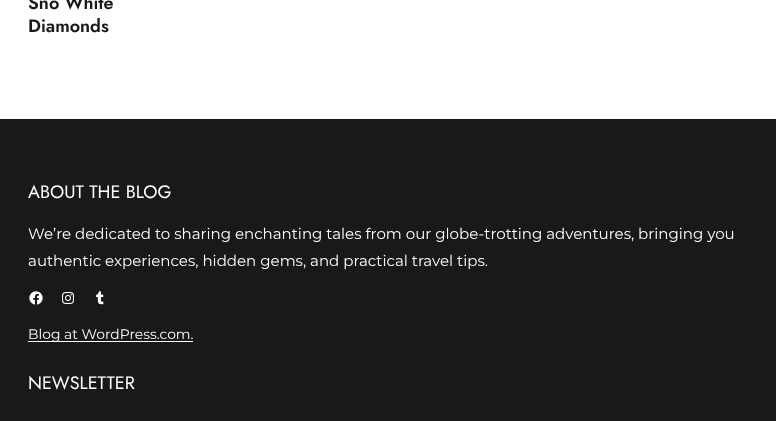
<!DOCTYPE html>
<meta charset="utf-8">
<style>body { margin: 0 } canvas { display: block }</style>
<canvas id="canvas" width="776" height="421"></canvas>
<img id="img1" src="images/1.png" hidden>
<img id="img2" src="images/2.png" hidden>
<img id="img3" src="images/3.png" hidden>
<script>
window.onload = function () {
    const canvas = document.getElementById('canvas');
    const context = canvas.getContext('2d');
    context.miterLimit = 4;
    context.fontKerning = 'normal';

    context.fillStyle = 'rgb(255, 255, 255)';
    context.fillRect(0, 0, 776, 421);
    context.fillStyle = 'rgb(25, 25, 25)';
    context.fillRect(0, 119, 776, 302);
    context.drawImage(document.getElementById('img1'), 29, 291, 14, 14);
    context.drawImage(document.getElementById('img2'), 62, 292, 12, 12);
    context.drawImage(document.getElementById('img3'), 96, 291, 8, 14);
    context.fillStyle = 'rgb(255, 255, 255)';
    context.fillRect(28, 341, 165, 1);
    context.font = '600 18px Jost';
    context.fillStyle = 'rgb(25, 25, 25)';
    context.fillText('Snō White', 28, 9);
    context.fillText('Diamonds', 28, 32);
    context.font = '18px Jost';
    context.fillStyle = 'rgb(255, 255, 255)';
    context.fillText('ABOUT THE BLOG', 28, 198);
    context.font = '15.05px Montserrat';
    context.fillText('We’re dedicated to sharing enchanting tales from our globe-trotting adventures, bringing you', 28, 239);
    context.fillText('authentic experiences, hidden gems, and practical travel tips.', 28, 266);
    context.font = '13.9px Montserrat';
    context.fillText('Blog at WordPress.com.', 28, 339);
    context.font = '18px Jost';
    context.fillText('NEWSLETTER', 28, 389);
};
</script>
